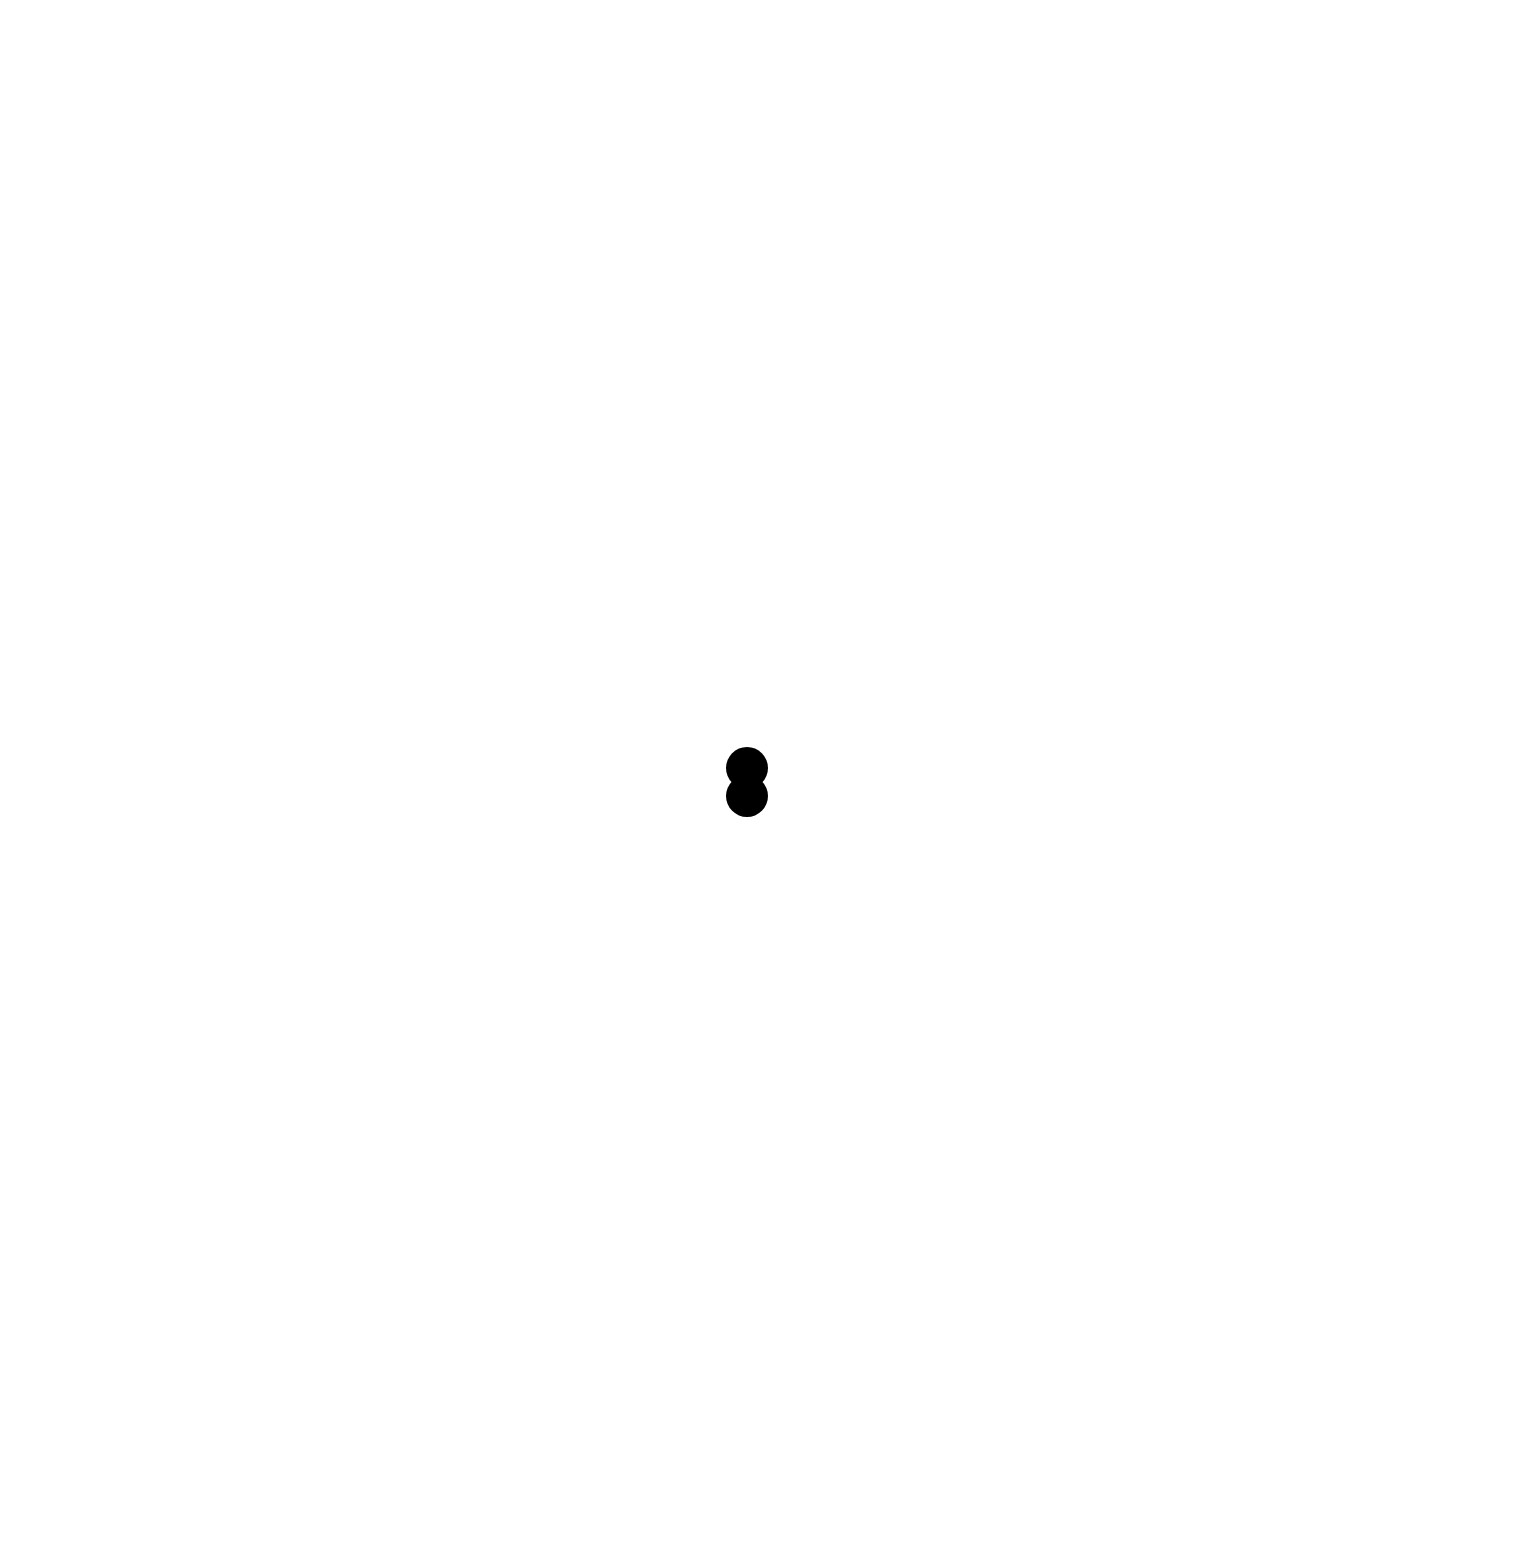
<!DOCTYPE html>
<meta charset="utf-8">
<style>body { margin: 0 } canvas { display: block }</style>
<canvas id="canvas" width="1521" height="1562"></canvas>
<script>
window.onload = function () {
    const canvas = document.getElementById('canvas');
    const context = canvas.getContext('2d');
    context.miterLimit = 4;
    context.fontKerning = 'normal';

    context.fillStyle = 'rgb(255, 255, 255)';
    context.fillRect(0, 0, 1521, 1562);
    context.fillStyle = 'rgb(0, 0, 0)';
    context.beginPath();
    context.arc(747, 768, 21, 0, 2 * Math.PI);
    context.fill();
    context.beginPath();
    context.arc(747, 796, 21, 0, 2 * Math.PI);
    context.fill();
};
</script>
